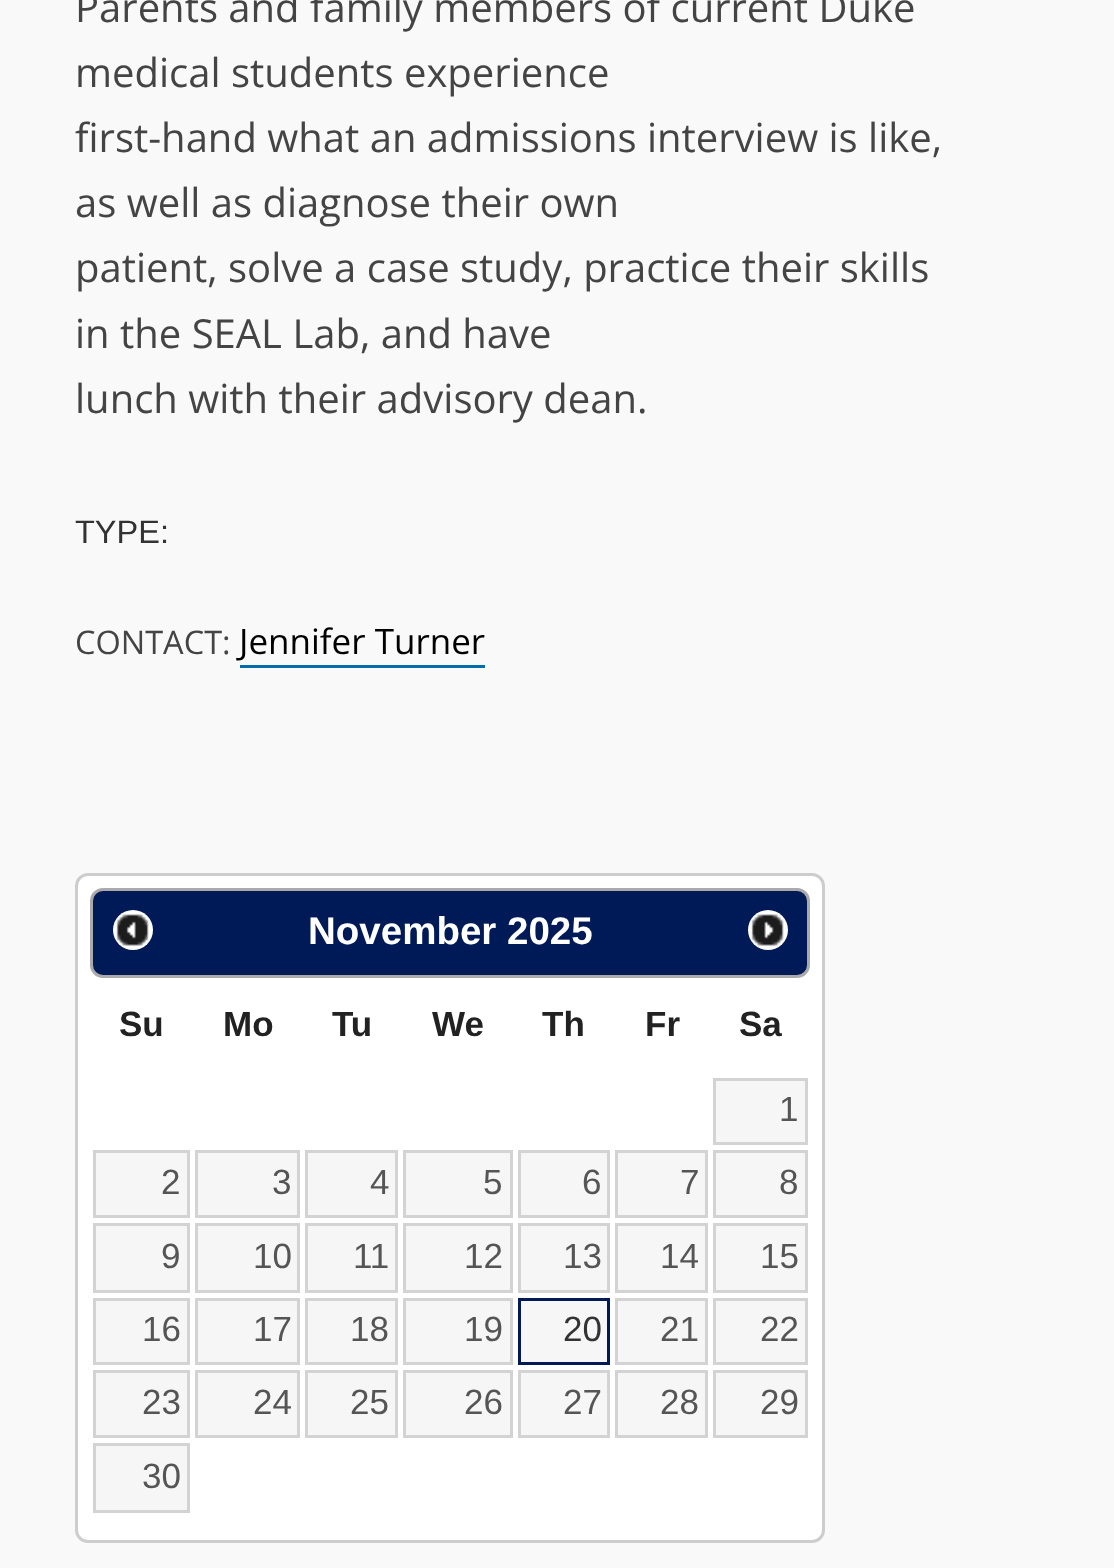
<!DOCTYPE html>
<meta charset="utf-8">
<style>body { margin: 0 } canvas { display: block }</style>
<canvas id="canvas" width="1114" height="1568"></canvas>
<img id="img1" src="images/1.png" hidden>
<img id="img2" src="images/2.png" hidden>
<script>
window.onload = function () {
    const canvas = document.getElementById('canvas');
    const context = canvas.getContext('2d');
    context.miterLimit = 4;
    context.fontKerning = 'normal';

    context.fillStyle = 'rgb(249, 249, 249)';
    context.fillRect(0, 0, 1114, 1568);
    context.fillStyle = 'rgb(5, 108, 172)';
    context.fillRect(240, 665, 245, 3);
    context.fillStyle = 'rgb(255, 255, 255)';
    context.beginPath();
    context.roundRect(76.5, 874.5, 747, 667, 11.5);
    context.fill();
    context.strokeStyle = 'rgb(205, 205, 205)';
    context.lineWidth = 3;
    context.stroke();
    context.fillStyle = 'rgb(0, 26, 87)';
    context.beginPath();
    context.roundRect(91.5, 889.5, 717, 87, 11.5);
    context.fill();
    context.strokeStyle = 'rgb(170, 170, 170)';
    context.stroke();
    context.fillStyle = 'rgb(255, 255, 255)';
    context.beginPath();
    context.arc(133, 930, 20, 0, 2 * Math.PI);
    context.fill();
    context.drawImage(document.getElementById('img1'), 116, 914, 33, 32);
    context.beginPath();
    context.arc(768, 930, 20, 0, 2 * Math.PI);
    context.fill();
    context.drawImage(document.getElementById('img2'), 751, 914, 33, 32);
    context.fillStyle = 'rgb(246, 246, 246)';
    context.beginPath();
    context.rect(714.5, 1079.5, 92, 64);
    context.fill();
    context.strokeStyle = 'rgb(211, 211, 211)';
    context.stroke();
    context.beginPath();
    context.rect(94.5, 1151.5, 94, 65);
    context.fill();
    context.stroke();
    context.beginPath();
    context.rect(196.5, 1151.5, 102, 65);
    context.fill();
    context.stroke();
    context.beginPath();
    context.rect(306.5, 1151.5, 90, 65);
    context.fill();
    context.stroke();
    context.beginPath();
    context.rect(404.5, 1151.5, 107, 65);
    context.fill();
    context.stroke();
    context.beginPath();
    context.rect(519.5, 1151.5, 89, 65);
    context.fill();
    context.stroke();
    context.beginPath();
    context.rect(616.5, 1151.5, 90, 65);
    context.fill();
    context.stroke();
    context.beginPath();
    context.rect(714.5, 1151.5, 92, 65);
    context.fill();
    context.stroke();
    context.beginPath();
    context.rect(94.5, 1224.5, 94, 67);
    context.fill();
    context.stroke();
    context.beginPath();
    context.rect(196.5, 1224.5, 102, 67);
    context.fill();
    context.stroke();
    context.beginPath();
    context.rect(306.5, 1224.5, 90, 67);
    context.fill();
    context.stroke();
    context.beginPath();
    context.rect(404.5, 1224.5, 107, 67);
    context.fill();
    context.stroke();
    context.beginPath();
    context.rect(519.5, 1224.5, 89, 67);
    context.fill();
    context.stroke();
    context.beginPath();
    context.rect(616.5, 1224.5, 90, 67);
    context.fill();
    context.stroke();
    context.beginPath();
    context.rect(714.5, 1224.5, 92, 67);
    context.fill();
    context.stroke();
    context.beginPath();
    context.rect(94.5, 1299.5, 94, 64);
    context.fill();
    context.stroke();
    context.beginPath();
    context.rect(196.5, 1299.5, 102, 64);
    context.fill();
    context.stroke();
    context.beginPath();
    context.rect(306.5, 1299.5, 90, 64);
    context.fill();
    context.stroke();
    context.beginPath();
    context.rect(404.5, 1299.5, 107, 64);
    context.fill();
    context.stroke();
    context.beginPath();
    context.rect(519.5, 1299.5, 89, 64);
    context.fill();
    context.strokeStyle = 'rgb(0, 26, 87)';
    context.stroke();
    context.beginPath();
    context.rect(616.5, 1299.5, 90, 64);
    context.fill();
    context.strokeStyle = 'rgb(211, 211, 211)';
    context.stroke();
    context.beginPath();
    context.rect(714.5, 1299.5, 92, 64);
    context.fill();
    context.stroke();
    context.beginPath();
    context.rect(94.5, 1371.5, 94, 65);
    context.fill();
    context.stroke();
    context.beginPath();
    context.rect(196.5, 1371.5, 102, 65);
    context.fill();
    context.stroke();
    context.beginPath();
    context.rect(306.5, 1371.5, 90, 65);
    context.fill();
    context.stroke();
    context.beginPath();
    context.rect(404.5, 1371.5, 107, 65);
    context.fill();
    context.stroke();
    context.beginPath();
    context.rect(519.5, 1371.5, 89, 65);
    context.fill();
    context.stroke();
    context.beginPath();
    context.rect(616.5, 1371.5, 90, 65);
    context.fill();
    context.stroke();
    context.beginPath();
    context.rect(714.5, 1371.5, 92, 65);
    context.fill();
    context.stroke();
    context.beginPath();
    context.rect(94.5, 1444.5, 94, 67);
    context.fill();
    context.stroke();
    context.font = '40px Open Sans';
    context.fillStyle = 'rgb(68, 68, 68)';
    context.fillText('Parents and family members of current Duke', 75, 22);
    context.fillText('medical students experience', 75, 87);
    context.fillText('first-hand what an admissions interview is like,', 75, 152);
    context.fillText('as well as diagnose their own', 75, 217);
    context.fillText('patient, solve a case study, practice their skills', 75, 282);
    context.fillText('in the SEAL Lab, and have', 75, 348);
    context.fillText('lunch with their advisory dean.', 75, 413);
    context.font = '32.5px Liberation Sans';
    context.fillStyle = 'rgb(51, 51, 51)';
    context.fillText('TYPE:', 75, 543);
    context.font = '32.5px Open Sans';
    context.fillStyle = 'rgb(68, 68, 68)';
    context.fillText('CONTACT:', 75, 654);
    context.font = '35px Open Sans';
    context.fillStyle = 'rgb(0, 0, 0)';
    context.fillText('Jennifer Turner', 239, 654);
    context.font = 'bold 38.5px Liberation Sans';
    context.fillStyle = 'rgb(255, 255, 255)';
    context.fillText('November 2025', 308, 944);
    context.font = 'bold 35px Liberation Sans';
    context.fillStyle = 'rgb(34, 34, 34)';
    context.fillText('Su', 119, 1036);
    context.fillText('Mo', 223, 1036);
    context.fillText('Tu', 332, 1036);
    context.fillText('We', 432, 1036);
    context.fillText('Th', 542, 1036);
    context.fillText('Fr', 645, 1036);
    context.fillText('Sa', 739, 1036);
    context.font = '35px Liberation Sans';
    context.fillStyle = 'rgb(85, 85, 85)';
    context.fillText('1', 779, 1121);
    context.fillText('2', 161, 1194);
    context.fillText('3', 272, 1194);
    context.fillText('4', 370, 1194);
    context.fillText('5', 483, 1194);
    context.fillText('6', 582, 1194);
    context.fillText('7', 680, 1194);
    context.fillText('8', 779, 1194);
    context.fillText('9', 161, 1268);
    context.fillText('10', 253, 1268);
    context.fillText('11', 353, 1268);
    context.fillText('12', 464, 1268);
    context.fillText('13', 563, 1268);
    context.fillText('14', 660, 1268);
    context.fillText('15', 760, 1268);
    context.fillText('16', 142, 1341);
    context.fillText('17', 253, 1341);
    context.fillText('18', 350, 1341);
    context.fillText('19', 464, 1341);
    context.fillStyle = 'rgb(51, 51, 51)';
    context.fillText('20', 563, 1341);
    context.fillStyle = 'rgb(85, 85, 85)';
    context.fillText('21', 660, 1341);
    context.fillText('22', 760, 1341);
    context.fillText('23', 142, 1414);
    context.fillText('24', 253, 1414);
    context.fillText('25', 350, 1414);
    context.fillText('26', 464, 1414);
    context.fillText('27', 563, 1414);
    context.fillText('28', 660, 1414);
    context.fillText('29', 760, 1414);
    context.fillText('30', 142, 1488);
};
</script>
